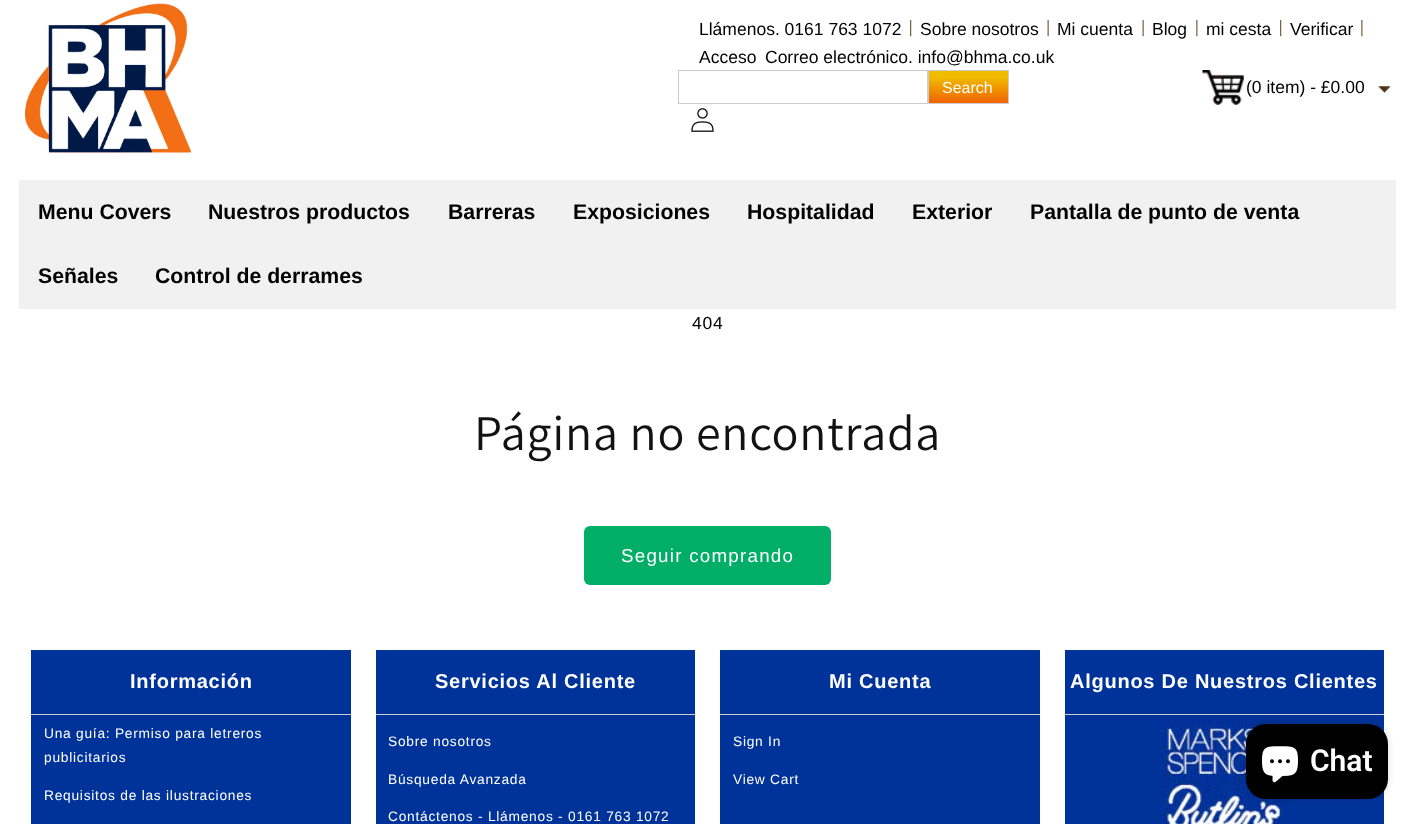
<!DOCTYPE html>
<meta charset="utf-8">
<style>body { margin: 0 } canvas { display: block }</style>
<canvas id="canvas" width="1415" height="824"></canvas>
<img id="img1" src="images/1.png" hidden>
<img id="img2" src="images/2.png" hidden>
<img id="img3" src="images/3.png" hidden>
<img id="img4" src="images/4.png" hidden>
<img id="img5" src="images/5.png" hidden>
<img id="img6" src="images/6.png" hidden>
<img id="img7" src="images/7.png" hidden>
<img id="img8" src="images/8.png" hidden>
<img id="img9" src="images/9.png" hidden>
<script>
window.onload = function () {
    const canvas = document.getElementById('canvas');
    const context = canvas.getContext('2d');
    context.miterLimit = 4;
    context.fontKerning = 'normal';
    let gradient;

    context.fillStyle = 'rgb(255, 255, 255)';
    context.fillRect(0, 0, 1415, 824);
    context.drawImage(document.getElementById('img1'), 25, 3, 167, 150);
    context.drawImage(document.getElementById('img2'), 910, 20, 2, 17);
    context.drawImage(document.getElementById('img3'), 1047, 20, 2, 17);
    context.drawImage(document.getElementById('img3'), 1142, 20, 2, 17);
    context.drawImage(document.getElementById('img4'), 1196, 20, 2, 17);
    context.drawImage(document.getElementById('img2'), 1280, 20, 2, 17);
    context.drawImage(document.getElementById('img4'), 1361, 20, 2, 17);
    context.strokeStyle = 'rgb(204, 204, 204)';
    context.strokeRect(678.5, 70.5, 249, 33);
    gradient = context.createLinearGradient(968, 103, 968, 71);
    gradient.addColorStop(0, 'rgb(240, 99, 0)');
    gradient.addColorStop(0.81, 'rgb(240, 187, 0)');
    context.fillStyle = gradient;
    context.fillRect(929, 71, 79, 32);
    context.strokeRect(928.5, 70.5, 80, 33);
    context.drawImage(document.getElementById('img5'), 1202, 70, 42, 35);
    context.drawImage(document.getElementById('img6'), 1378, 86, 12, 7);
    context.drawImage(document.getElementById('img7'), 691, 108, 23, 24);
    context.fillStyle = 'rgb(241, 241, 241)';
    context.fillRect(19, 180, 1377, 129);
    context.fillStyle = 'rgb(0, 174, 103)';
    context.beginPath();
    context.roundRect(584, 526, 247, 59, 6);
    context.fill();
    context.fillStyle = 'rgb(0, 51, 153)';
    context.fillRect(31, 650, 320, 174);
    context.fillStyle = 'rgb(204, 204, 204)';
    context.fillRect(31, 714, 320, 1);
    context.fillStyle = 'rgb(0, 51, 153)';
    context.fillRect(376, 650, 319, 174);
    context.fillStyle = 'rgb(204, 204, 204)';
    context.fillRect(376, 714, 319, 1);
    context.fillStyle = 'rgb(0, 51, 153)';
    context.fillRect(720, 650, 320, 174);
    context.fillStyle = 'rgb(204, 204, 204)';
    context.fillRect(720, 714, 320, 1);
    context.fillStyle = 'rgb(0, 51, 153)';
    context.fillRect(1065, 650, 319, 174);
    context.fillStyle = 'rgb(204, 204, 204)';
    context.fillRect(1065, 714, 319, 1);
    context.drawImage(document.getElementById('img8'), 1161, 721, 125, 103);
    context.fillStyle = 'rgba(0, 0, 0, 0.15)';
    context.filter = 'blur(3px)';
    context.beginPath();
    context.roundRect(1246, 724, 142, 75, 20);
    context.fill();
    context.filter = 'none';
    context.fillStyle = 'rgb(0, 0, 0)';
    context.beginPath();
    context.roundRect(1246, 724, 142, 75, 20);
    context.fill();
    context.drawImage(document.getElementById('img9'), 1262, 746, 36, 37);
    context.font = '17.5px Liberation Sans';
    context.fillText('Llámenos. 0161 763 1072', 699, 35);
    context.fillText('Sobre nosotros', 920, 35);
    context.fillText('Mi cuenta', 1057, 35);
    context.fillText('Blog', 1152, 35);
    context.fillText('mi cesta', 1206, 35);
    context.fillText('Verificar', 1290, 35);
    context.fillText('Acceso', 699, 63);
    context.fillText('Correo electrónico. info@bhma.co.uk', 765, 63);
    context.font = '16px Liberation Sans';
    context.fillStyle = 'rgb(255, 255, 255)';
    context.fillText('Search', 942, 93);
    context.font = '17.5px Liberation Sans';
    context.fillStyle = 'rgb(0, 0, 0)';
    context.fillText('(0 item) - £0.00', 1246, 93);
    context.font = 'bold 21.25px Liberation Sans';
    context.fillText('Menu Covers', 38, 219);
    context.fillText('Nuestros productos', 208, 219);
    context.fillText('Barreras', 448, 219);
    context.fillText('Exposiciones', 573, 219);
    context.fillText('Hospitalidad', 747, 219);
    context.fillText('Exterior', 912, 219);
    context.fillText('Pantalla de punto de venta', 1030, 219);
    context.fillText('Señales', 38, 283);
    context.fillText('Control de derrames', 155, 283);
    context.letterSpacing = '0.75px';
    context.font = '17.5px Liberation Sans';
    context.fillText('404', 692, 329);
    context.font = '50px Assistant';
    context.fillStyle = 'rgb(18, 18, 18)';
    context.fillText('Página no encontrada', 474, 450);
    context.letterSpacing = '1.25px';
    context.font = '18.75px Liberation Sans';
    context.fillStyle = 'rgb(255, 255, 255)';
    context.fillText('Seguir comprando', 621, 562);
    context.letterSpacing = '0.75px';
    context.font = 'bold 20px Liberation Sans';
    context.fillText('Información', 130, 688);
    context.font = '13.75px Liberation Sans';
    context.fillText('Una guía: Permiso para letreros', 44, 738);
    context.fillText('publicitarios', 44, 762);
    context.fillText('Requisitos de las ilustraciones', 44, 800);
    context.font = 'bold 20px Liberation Sans';
    context.fillText('Servicios Al Cliente', 435, 688);
    context.font = '13.75px Liberation Sans';
    context.fillText('Sobre nosotros', 388, 746);
    context.fillText('Búsqueda Avanzada', 388, 784);
    context.fillText('Contáctenos - Llámenos - 0161 763 1072', 388, 821);
    context.font = 'bold 20px Liberation Sans';
    context.fillText('Mi Cuenta', 829, 688);
    context.font = '13.75px Liberation Sans';
    context.fillText('Sign In', 733, 746);
    context.fillText('View Cart', 733, 784);
    context.font = 'bold 20px Liberation Sans';
    context.fillText('Algunos De Nuestros Clientes', 1070, 688);
    context.letterSpacing = '0px';
    context.font = '600 30px Roboto';
    context.fillText('Chat', 1310, 771);
};
</script>
